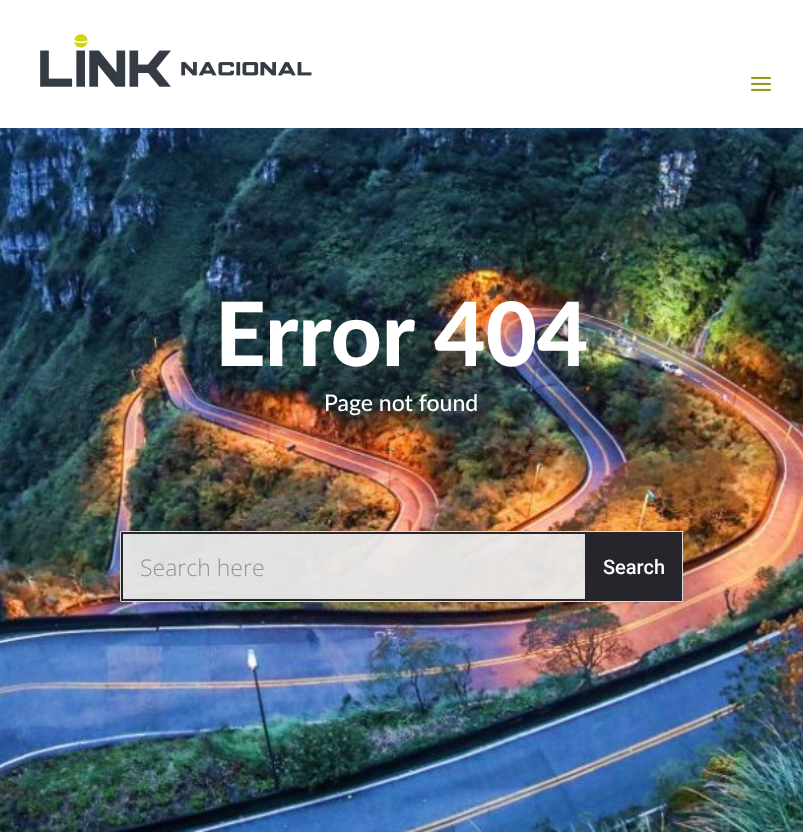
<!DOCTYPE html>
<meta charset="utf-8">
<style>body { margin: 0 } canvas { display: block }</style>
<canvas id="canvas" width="803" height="832"></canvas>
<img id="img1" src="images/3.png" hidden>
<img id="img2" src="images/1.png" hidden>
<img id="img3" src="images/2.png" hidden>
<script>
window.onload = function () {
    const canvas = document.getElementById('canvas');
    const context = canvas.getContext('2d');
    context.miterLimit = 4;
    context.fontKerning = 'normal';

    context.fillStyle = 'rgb(255, 255, 255)';
    context.fillRect(0, 0, 803, 832);
    context.drawImage(document.getElementById('img1'), 0, 128, 803, 704);
    context.save();
    context.beginPath();
    context.rect(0, 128, 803, 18);
    context.clip();
    context.fillStyle = 'rgba(103, 151, 255, 0.17)';
    context.filter = 'blur(15px)';
    context.beginPath();
    context.rect(0, 0, 803, 128);
    context.fill();
    context.filter = 'none';
    context.restore();
    context.drawImage(document.getElementById('img2'), 40, 34, 272, 53);
    context.drawImage(document.getElementById('img3'), 751, 76, 20, 15);
    context.save();
    context.beginPath();
    context.moveTo(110, 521);
    context.lineTo(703, 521);
    context.lineTo(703, 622);
    context.lineTo(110, 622);
    context.closePath();
    context.moveTo(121, 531);
    context.lineTo(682, 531);
    context.bezierCurveTo(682.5, 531, 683, 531.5, 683, 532);
    context.lineTo(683, 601);
    context.bezierCurveTo(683, 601.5, 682.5, 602, 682, 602);
    context.lineTo(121, 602);
    context.bezierCurveTo(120.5, 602, 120, 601.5, 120, 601);
    context.lineTo(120, 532);
    context.bezierCurveTo(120, 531.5, 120.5, 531, 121, 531);
    context.closePath();
    context.clip('evenodd');
    context.fillStyle = 'rgba(0, 0, 0, 0.07)';
    context.filter = 'blur(4.5px)';
    context.beginPath();
    context.roundRect(125, 536, 563, 71, 1);
    context.fill();
    context.filter = 'none';
    context.restore();
    context.beginPath();
    context.roundRect(120.5, 531.5, 562, 70, 0.5);
    context.strokeStyle = 'rgb(221, 221, 221)';
    context.stroke();
    context.fillStyle = 'rgba(234, 234, 234, 0.95)';
    context.beginPath();
    context.rect(122, 533, 464, 67);
    context.fill();
    context.strokeStyle = 'rgb(37, 37, 43)';
    context.lineWidth = 2;
    context.stroke();
    context.fillStyle = 'rgb(37, 37, 43)';
    context.fillRect(587, 532, 95, 69);
    context.font = '900 88.5px Lato';
    context.fillStyle = 'rgb(255, 255, 255)';
    context.fillText('Error 404', 215, 366);
    context.font = '500 23px Lato';
    context.fillText('Page not found', 324, 411);
    context.font = '300 23px Open Sans';
    context.fillStyle = 'rgb(147, 147, 147)';
    context.fillText('Search here', 140, 576);
    context.font = '500 20px Roboto';
    context.fillStyle = 'rgb(255, 255, 255)';
    context.fillText('Search', 603, 574);
};
</script>
